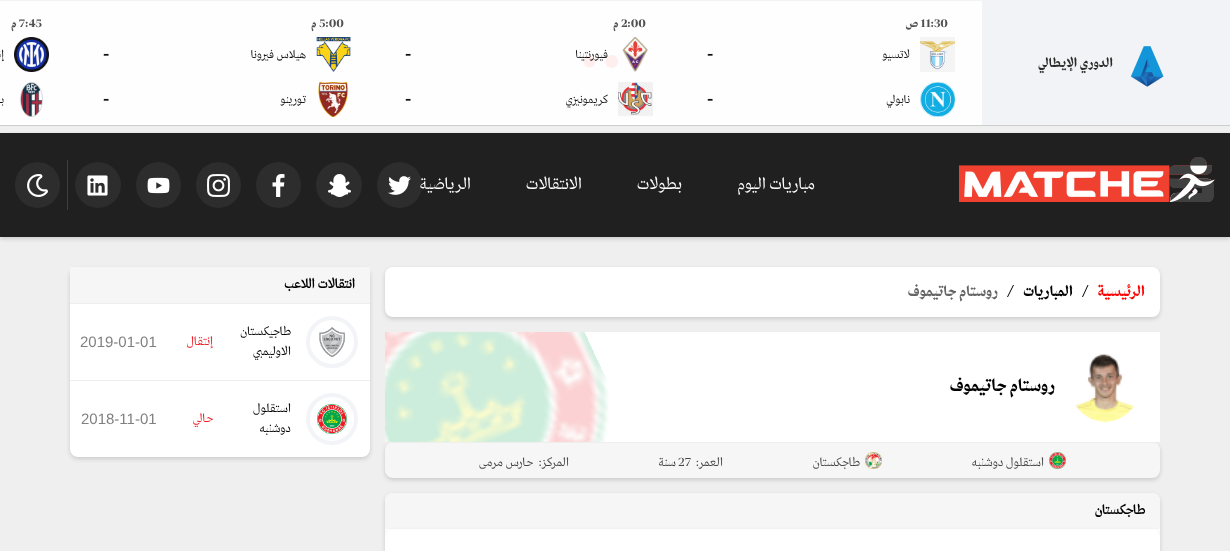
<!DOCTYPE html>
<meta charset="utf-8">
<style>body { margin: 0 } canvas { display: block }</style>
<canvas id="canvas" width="1230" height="551"></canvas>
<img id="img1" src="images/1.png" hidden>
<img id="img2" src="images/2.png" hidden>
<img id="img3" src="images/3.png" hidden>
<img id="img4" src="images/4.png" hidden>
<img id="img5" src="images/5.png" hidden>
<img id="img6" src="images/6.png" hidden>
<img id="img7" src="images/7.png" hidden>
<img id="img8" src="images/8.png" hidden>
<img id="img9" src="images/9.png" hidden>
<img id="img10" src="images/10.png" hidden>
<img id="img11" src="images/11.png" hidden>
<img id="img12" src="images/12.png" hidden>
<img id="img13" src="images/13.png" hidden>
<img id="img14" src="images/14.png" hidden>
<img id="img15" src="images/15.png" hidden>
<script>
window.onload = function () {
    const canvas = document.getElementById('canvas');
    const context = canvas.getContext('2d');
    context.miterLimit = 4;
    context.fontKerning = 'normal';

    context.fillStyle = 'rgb(239, 239, 239)';
    context.fillRect(0, 0, 1230, 551);
    context.drawImage(document.getElementById('img1'), 0, 0, 1230, 125);
    context.fillStyle = 'rgb(204, 204, 204)';
    context.fillRect(0, 125, 1230, 1);
    context.fillStyle = 'rgba(0, 0, 0, 0.15)';
    context.filter = 'blur(2px)';
    context.beginPath();
    context.rect(0, 135, 1230, 104);
    context.fill();
    context.filter = 'none';
    context.fillStyle = 'rgb(32, 32, 32)';
    context.fillRect(0, 133, 1230, 104);
    context.drawImage(document.getElementById('img2'), 959, 157, 256, 45);
    context.fillStyle = 'rgb(45, 45, 45)';
    context.beginPath();
    context.roundRect(377, 162, 45, 46, 22.5);
    context.fill();
    context.drawImage(document.getElementById('img3'), 388, 176, 23, 19);
    context.beginPath();
    context.arc(339, 185, 23, 0, 2 * Math.PI);
    context.fill();
    context.drawImage(document.getElementById('img4'), 328, 174, 23, 23);
    context.beginPath();
    context.roundRect(256, 162, 45, 46, 22.5);
    context.fill();
    context.drawImage(document.getElementById('img5'), 272, 174, 13, 23);
    context.beginPath();
    context.roundRect(196, 162, 45, 46, 22.5);
    context.fill();
    context.drawImage(document.getElementById('img6'), 207, 174, 23, 23);
    context.beginPath();
    context.roundRect(136, 162, 45, 46, 22.5);
    context.fill();
    context.drawImage(document.getElementById('img7'), 147, 177, 23, 17);
    context.beginPath();
    context.arc(98, 185, 23, 0, 2 * Math.PI);
    context.fill();
    context.drawImage(document.getElementById('img8'), 87, 175, 21, 21);
    context.beginPath();
    context.roundRect(15, 162, 45, 46, 22.5);
    context.fill();
    context.fillStyle = 'rgb(62, 62, 62)';
    context.fillRect(67, 160, 1, 50);
    context.drawImage(document.getElementById('img9'), 27, 174, 21, 23);
    context.fillStyle = 'rgba(0, 0, 0, 0.15)';
    context.filter = 'blur(2px)';
    context.beginPath();
    context.roundRect(385, 269, 775, 50, 8);
    context.fill();
    context.filter = 'none';
    context.fillStyle = 'rgb(255, 255, 255)';
    context.beginPath();
    context.roundRect(385, 267, 775, 50, 8);
    context.fill();
    context.fillStyle = 'rgb(0, 0, 0)';
    context.beginPath();
    context.moveTo(1087.5, 285);
    context.lineTo(1088.5, 285);
    context.lineTo(1083, 297);
    context.lineTo(1082, 297);
    context.closePath();
    context.fill();
    context.beginPath();
    context.moveTo(1013, 285);
    context.lineTo(1014, 285);
    context.lineTo(1008, 297);
    context.lineTo(1007, 297);
    context.closePath();
    context.fill();
    context.fillStyle = 'rgba(0, 0, 0, 0.15)';
    context.filter = 'blur(2px)';
    context.beginPath();
    context.roundRect(385, 444, 775, 36, 8);
    context.fill();
    context.filter = 'none';
    context.fillStyle = 'rgb(255, 255, 255)';
    context.fillRect(385, 332, 775, 110);
    context.drawImage(document.getElementById('img10'), 1075, 353, 60, 69);
    context.drawImage(document.getElementById('img11'), 385, 332, 224, 110);
    context.fillStyle = 'rgb(246, 246, 246)';
    context.beginPath();
    context.roundRect(385, 442, 775, 36, 8);
    context.fill();
    context.fillStyle = 'rgb(238, 238, 238)';
    context.fillRect(389, 442, 767, 1);
    context.drawImage(document.getElementById('img12'), 1049, 452, 17, 17);
    context.drawImage(document.getElementById('img13'), 865, 452, 17, 17);
    context.fillStyle = 'rgba(0, 0, 0, 0.15)';
    context.filter = 'blur(2px)';
    context.beginPath();
    context.roundRect(385, 495, 775, 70, 8);
    context.fill();
    context.filter = 'none';
    context.fillStyle = 'rgb(255, 255, 255)';
    context.beginPath();
    context.roundRect(385, 493, 775, 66, 8);
    context.fill();
    context.fillStyle = 'rgb(246, 246, 246)';
    context.beginPath();
    context.roundRect(385, 493, 775, 36, [8, 8, 0, 0]);
    context.fill();
    context.save();
    context.beginPath();
    context.roundRect(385, 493, 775, 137, 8);
    context.clip();
    context.fillStyle = 'rgba(0, 0, 0, 0.15)';
    context.filter = 'blur(2px)';
    context.beginPath();
    context.roundRect(385, 531, 775, 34, 8);
    context.fill();
    context.filter = 'none';
    context.restore();
    context.fillStyle = 'rgb(255, 255, 255)';
    context.beginPath();
    context.roundRect(385, 529, 775, 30, 8);
    context.fill();
    context.fillStyle = 'rgba(0, 0, 0, 0.15)';
    context.filter = 'blur(2px)';
    context.beginPath();
    context.roundRect(70, 269, 300, 190, 8);
    context.fill();
    context.filter = 'none';
    context.fillStyle = 'rgb(255, 255, 255)';
    context.beginPath();
    context.roundRect(70, 267, 300, 190, 8);
    context.fill();
    context.fillStyle = 'rgb(246, 246, 246)';
    context.fillRect(70, 267, 300, 36);
    context.fillStyle = 'rgb(238, 238, 238)';
    context.fillRect(70, 303, 300, 1);
    context.beginPath();
    context.arc(332, 342, 24, 0, 2 * Math.PI);
    context.strokeStyle = 'rgb(243, 244, 247)';
    context.lineWidth = 4;
    context.stroke();
    context.drawImage(document.getElementById('img14'), 319, 327, 26, 30);
    context.fillRect(70, 380, 300, 1);
    context.beginPath();
    context.arc(332, 419, 24, 0, 2 * Math.PI);
    context.stroke();
    context.drawImage(document.getElementById('img15'), 317, 404, 30, 30);
    context.direction = 'rtl';
    context.font = '20px "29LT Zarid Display"';
    context.fillStyle = 'rgb(255, 255, 255)';
    context.fillText('مباريات اليوم', 815, 189);
    context.fillText('بطولات', 682, 189);
    context.fillText('الانتقالات', 582, 189);
    context.fillText('الرياضية', 471, 189);
    context.font = 'bold 18px "29LT Zarid Display"';
    context.fillStyle = 'rgb(255, 0, 0)';
    context.fillText('الرئيسية', 1145, 296);
    context.fillStyle = 'rgb(0, 0, 0)';
    context.fillText('المباريات', 1073, 296);
    context.fillStyle = 'rgb(101, 101, 101)';
    context.fillText('روستام جاتيموف', 998, 296);
    context.font = 'bold 21px "29LT Zarid Display"';
    context.fillStyle = 'rgb(0, 0, 0)';
    context.fillText('روستام جاتيموف', 1055, 391);
    context.font = '15px "29LT Zarid Display"';
    context.fillStyle = 'rgb(68, 68, 68)';
    context.fillText('استقلول دوشنبه', 1044, 466);
    context.fillText('طاجكستان', 860, 466);
    context.fillText('العمر:', 723, 466);
    context.direction = 'ltr';
    context.fillText('27', 678, 466);
    context.direction = 'rtl';
    context.fillText('سنة', 676, 466);
    context.fillText('المركز:', 569, 466);
    context.fillText('حارس مرمى', 533, 466);
    context.font = 'bold 16px "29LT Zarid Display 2"';
    context.fillStyle = 'rgb(0, 0, 0)';
    context.fillText('طاجكستان', 1145, 514);
    context.fillText('انتقالات اللاعب', 355, 288);
    context.font = '15px "29LT Zarid Display"';
    context.fillText('طاجيكستان', 291, 335);
    context.fillText('الاوليمبي', 291, 355);
    context.fillStyle = 'rgb(237, 28, 36)';
    context.fillText('إنتقال', 213, 345);
    context.direction = 'ltr';
    context.font = '15px Liberation Sans';
    context.fillStyle = 'rgb(128, 128, 128)';
    context.fillText('2019-01-01', 80, 347);
    context.direction = 'rtl';
    context.font = '15px "29LT Zarid Display"';
    context.fillStyle = 'rgb(0, 0, 0)';
    context.fillText('استقلول', 291, 412);
    context.fillText('دوشنبه', 291, 432);
    context.fillStyle = 'rgb(237, 28, 36)';
    context.fillText('حالي', 213, 422);
    context.direction = 'ltr';
    context.font = '15px Liberation Sans';
    context.fillStyle = 'rgb(128, 128, 128)';
    context.fillText('2018-11-01', 81, 424);
};
</script>
